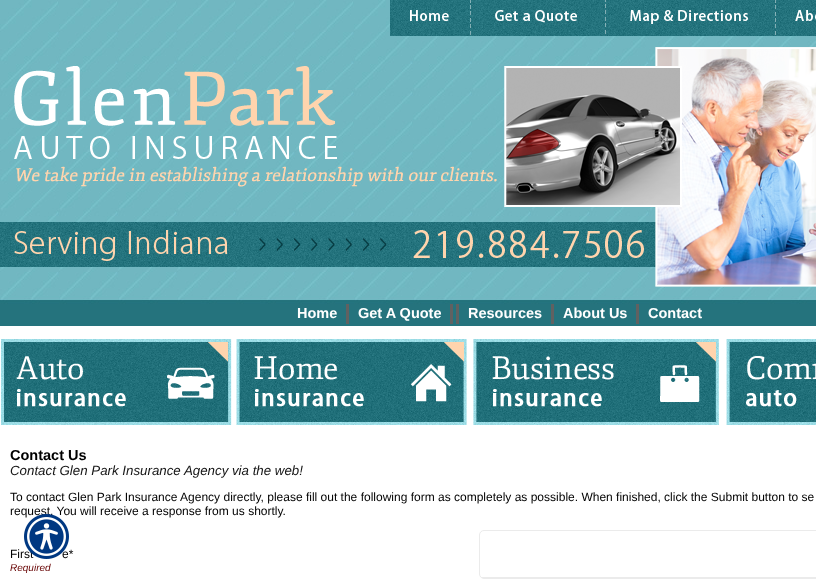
<!DOCTYPE html>
<meta charset="utf-8">
<style>body { margin: 0 } canvas { display: block }</style>
<canvas id="canvas" width="816" height="587"></canvas>
<img id="img1" src="images/1.png" hidden>
<img id="img2" src="images/2.png" hidden>
<img id="img3" src="images/3.png" hidden>
<img id="img4" src="images/4.png" hidden>
<script>
window.onload = function () {
    const canvas = document.getElementById('canvas');
    const context = canvas.getContext('2d');
    context.miterLimit = 4;
    context.fontKerning = 'normal';

    context.fillStyle = 'rgb(255, 255, 255)';
    context.fillRect(0, 0, 816, 587);
    context.drawImage(document.getElementById('img1'), 0, 0, 816, 326);
    context.drawImage(document.getElementById('img2'), 0, 0, 816, 287);
    context.fillStyle = 'rgb(97, 97, 97)';
    context.fillRect(346, 304, 3, 20);
    context.fillRect(450, 304, 3, 20);
    context.fillRect(456, 304, 3, 20);
    context.fillRect(551, 304, 3, 20);
    context.fillRect(636, 304, 3, 20);
    context.drawImage(document.getElementById('img3'), 0, 326, 816, 116);
    context.beginPath();
    context.roundRect(479.5, 530.5, 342, 48, 4.5);
    context.strokeStyle = 'rgb(235, 235, 235)';
    context.stroke();
    context.fillStyle = 'rgb(235, 235, 235)';
    context.fillRect(482, 577, 334, 1);
    context.font = 'bold 14.5px Liberation Sans';
    context.fillStyle = 'rgb(255, 255, 255)';
    context.fillText('Home', 297, 318);
    context.fillText('Get A Quote', 358, 318);
    context.fillText('Resources', 468, 318);
    context.fillText('About Us', 563, 318);
    context.fillText('Contact', 648, 318);
    context.fillStyle = 'rgb(0, 0, 0)';
    context.fillText('Contact Us', 10, 460);
    context.font = 'italic 13.3px Liberation Sans';
    context.fillStyle = 'rgb(21, 21, 21)';
    context.fillText('Contact Glen Park Insurance Agency via the web!', 10, 475);
    context.font = '12px Liberation Sans';
    context.fillStyle = 'rgb(0, 0, 0)';
    context.fillText('To contact Glen Park Insurance Agency directly, please fill out the following form as completely as possible. When finished, click the Submit button to se', 10, 501);
    context.fillText('request. You will receive a response from us shortly.', 10, 515);
    context.fillText('First', 10, 558);
    context.fillText('e*', 62, 558);
    context.font = 'italic 10px Liberation Sans';
    context.fillStyle = 'rgb(102, 0, 0)';
    context.fillText('Required', 10, 571);
    context.drawImage(document.getElementById('img4'), 24, 514, 45, 45);
};
</script>
